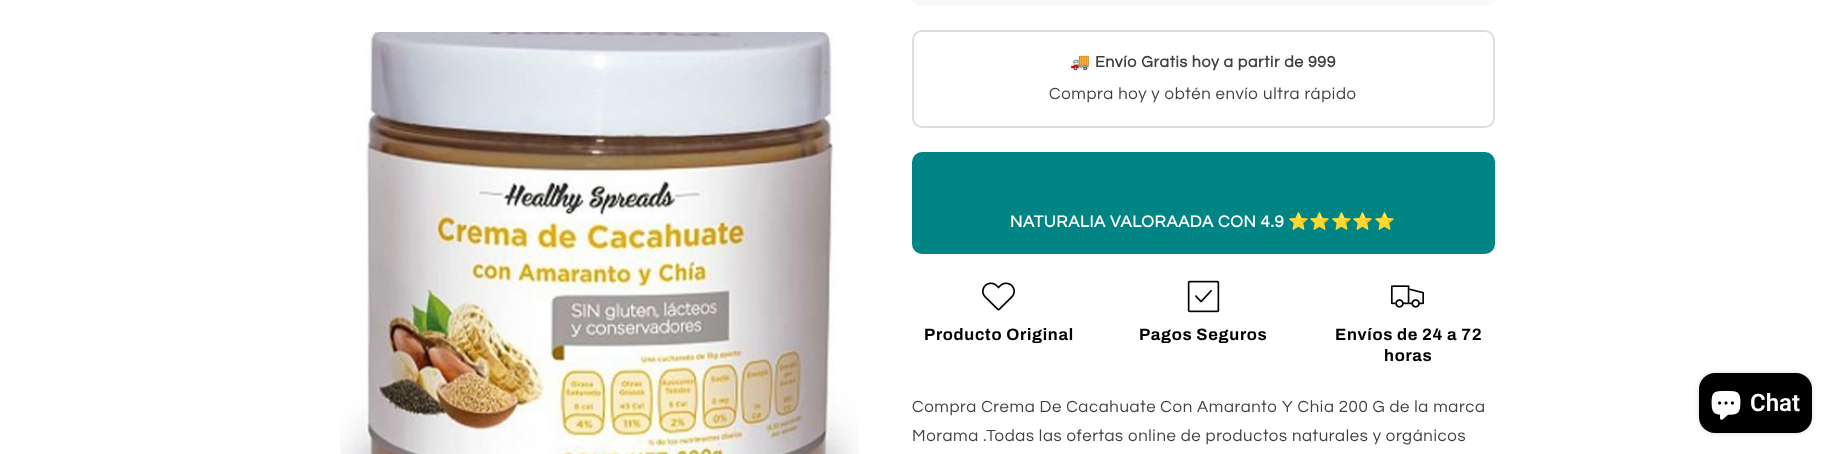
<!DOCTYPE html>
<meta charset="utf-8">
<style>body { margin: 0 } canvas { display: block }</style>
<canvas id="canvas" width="1834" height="454"></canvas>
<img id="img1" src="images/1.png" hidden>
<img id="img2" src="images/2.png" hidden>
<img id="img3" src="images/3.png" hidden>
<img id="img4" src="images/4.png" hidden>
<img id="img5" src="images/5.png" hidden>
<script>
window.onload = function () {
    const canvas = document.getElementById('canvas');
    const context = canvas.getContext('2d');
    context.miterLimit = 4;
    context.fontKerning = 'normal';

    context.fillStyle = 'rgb(255, 255, 255)';
    context.fillRect(0, 0, 1834, 454);
    context.drawImage(document.getElementById('img1'), 340, 32, 519, 422);
    context.fillStyle = 'rgb(249, 249, 249)';
    context.beginPath();
    context.roundRect(912, -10, 583, 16, 10);
    context.fill();
    context.beginPath();
    context.roundRect(913, 31, 581, 96, 9);
    context.strokeStyle = 'rgb(221, 221, 221)';
    context.lineWidth = 2;
    context.stroke();
    context.fillStyle = 'rgb(0, 133, 132)';
    context.beginPath();
    context.roundRect(912, 152, 583, 102, 10);
    context.fill();
    context.drawImage(document.getElementById('img2'), 982, 282, 33, 29);
    context.drawImage(document.getElementById('img3'), 1187, 280, 33, 33);
    context.drawImage(document.getElementById('img4'), 1391, 285, 33, 23);
    context.fillStyle = 'rgba(0, 0, 0, 0.15)';
    context.filter = 'blur(2.5px)';
    context.beginPath();
    context.roundRect(1699, 373, 113, 60, 16);
    context.fill();
    context.filter = 'none';
    context.fillStyle = 'rgb(0, 0, 0)';
    context.beginPath();
    context.roundRect(1699, 373, 113, 60, 16);
    context.fill();
    context.drawImage(document.getElementById('img5'), 1711, 391, 30, 29);
    context.letterSpacing = '0.63px';
    context.font = 'bold 16px Noto Color Emoji';
    context.fillStyle = 'rgb(64, 64, 64)';
    context.fillText('🚚', 1070, 67);
    context.font = 'bold 16px Questrial';
    context.fillText('Envío Gratis hoy a partir de 999', 1095, 67);
    context.font = '16.8px Questrial';
    context.fillText('Compra hoy y obtén envío ultra rápido', 1049, 99);
    context.font = 'bold 16.8px Questrial';
    context.fillStyle = 'rgb(255, 255, 255)';
    context.fillText('NATURALIA VALORAADA CON 4.9', 1010, 227);
    context.font = 'bold 16.8px Noto Color Emoji';
    context.fillText('⭐⭐⭐⭐⭐', 1288, 227);
    context.letterSpacing = '0.7px';
    context.font = 'bold 16.5px Archivo';
    context.fillStyle = 'rgb(0, 0, 0)';
    context.fillText('Producto Original', 924, 340);
    context.fillText('Pagos Seguros', 1139, 340);
    context.fillText('Envíos de 24 a 72', 1335, 340);
    context.fillText('horas', 1384, 361);
    context.letterSpacing = '0.63px';
    context.font = '16.8px Questrial';
    context.fillStyle = 'rgb(64, 64, 64)';
    context.fillText('Compra Crema De Cacahuate Con Amaranto Y Chia 200 G de la marca', 912, 412);
    context.fillText('Morama .Todas las ofertas online de productos naturales y orgánicos', 912, 441);
    context.letterSpacing = '0px';
    context.font = '600 24px Roboto';
    context.fillStyle = 'rgb(255, 255, 255)';
    context.fillText('Chat', 1750, 411);
};
</script>
